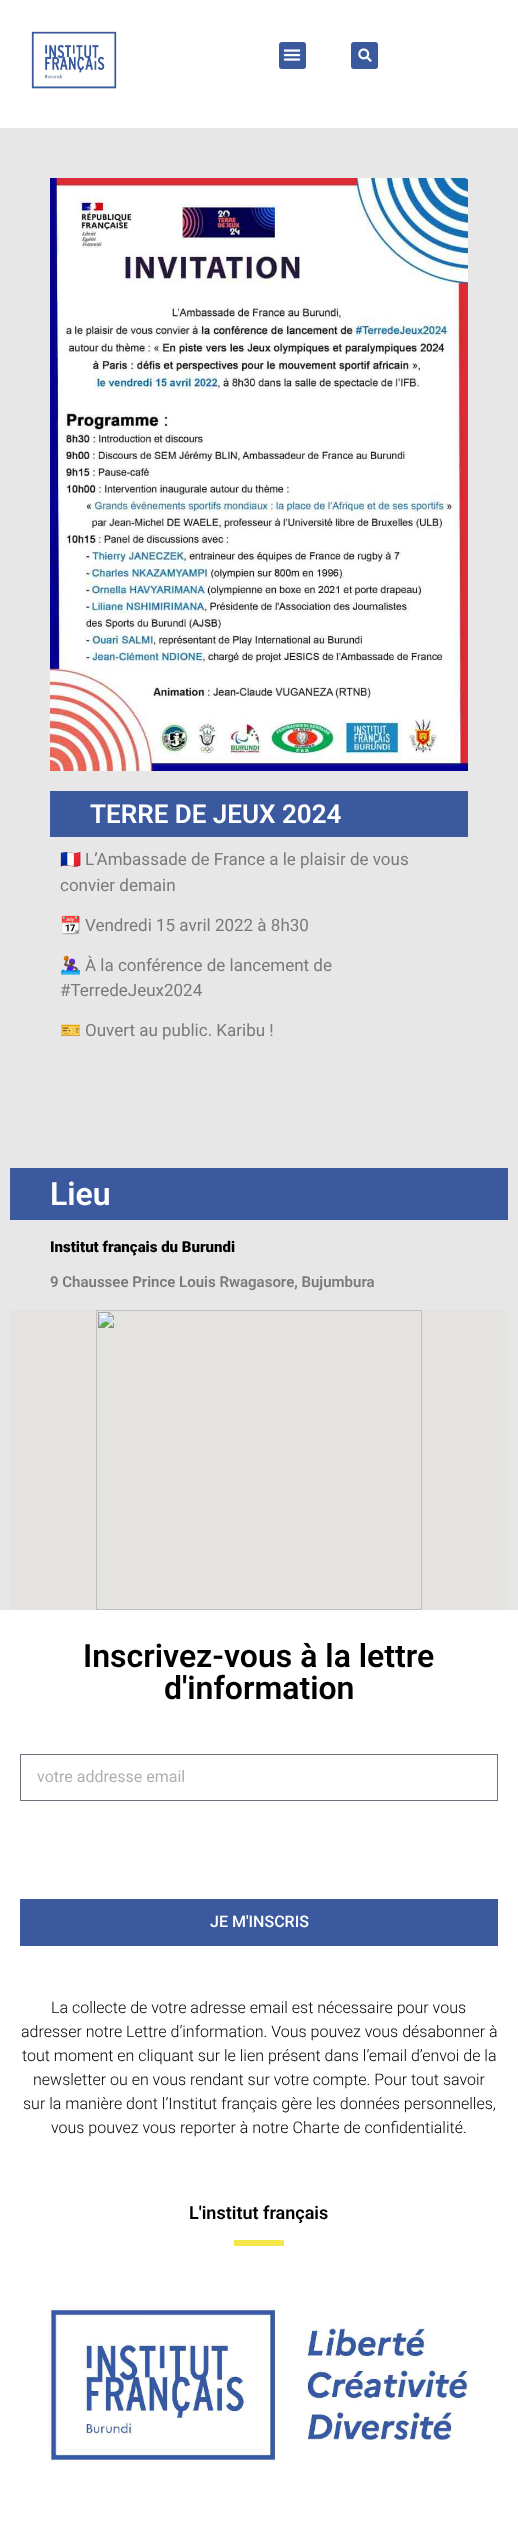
<!DOCTYPE html>
<meta charset="utf-8">
<style>body { margin: 0 } canvas { display: block }</style>
<canvas id="canvas" width="518" height="2527"></canvas>
<img id="img1" src="images/1.png" hidden>
<img id="img2" src="images/2.png" hidden>
<img id="img3" src="images/3.png" hidden>
<img id="img4" src="images/4.png" hidden>
<img id="img5" src="images/5.png" hidden>
<img id="img6" src="images/6.png" hidden>
<script>
window.onload = function () {
    const canvas = document.getElementById('canvas');
    const context = canvas.getContext('2d');
    context.miterLimit = 4;
    context.fontKerning = 'normal';

    context.fillStyle = 'rgb(255, 255, 255)';
    context.fillRect(0, 0, 518, 2527);
    context.drawImage(document.getElementById('img1'), 30, 30, 87, 59);
    context.fillStyle = 'rgb(59, 89, 159)';
    context.beginPath();
    context.roundRect(279, 42, 27, 27, 3);
    context.fill();
    context.drawImage(document.getElementById('img2'), 283, 49, 18, 12);
    context.beginPath();
    context.roundRect(351, 42, 27, 27, 3);
    context.fill();
    context.drawImage(document.getElementById('img3'), 358, 48, 14, 14);
    context.fillStyle = 'rgb(232, 231, 231)';
    context.fillRect(0, 128, 518, 1482);
    context.drawImage(document.getElementById('img4'), 50, 178, 418, 593);
    context.fillStyle = 'rgb(59, 89, 159)';
    context.fillRect(50, 791, 418, 46);
    context.fillRect(10, 1168, 498, 52);
    context.drawImage(document.getElementById('img5'), 10, 1310, 498, 300);
    context.strokeStyle = 'rgb(105, 114, 125)';
    context.strokeRect(20.5, 1754.5, 477, 46);
    context.fillRect(20, 1899, 478, 47);
    context.fillStyle = 'rgb(245, 231, 73)';
    context.fillRect(234, 2240, 50, 6);
    context.drawImage(document.getElementById('img6'), 47, 2306, 425, 156);
    context.font = '600 26px Roboto';
    context.fillStyle = 'rgb(255, 255, 255)';
    context.fillText('TERRE DE JEUX 2024', 90, 823);
    context.font = '17px Noto Color Emoji';
    context.fillStyle = 'rgb(122, 122, 122)';
    context.fillText('🇫🇷', 60, 865);
    context.font = '17px Roboto';
    context.fillText('L’Ambassade de France a le plaisir de vous', 85, 865);
    context.fillText('convier demain', 60, 891);
    context.font = '17px Noto Color Emoji';
    context.fillText('📆', 60, 931);
    context.font = '17px Roboto';
    context.fillText('Vendredi 15 avril 2022 à 8h30', 85, 931);
    context.font = '17px Noto Color Emoji';
    context.fillText('🤽🏿‍♀', 60, 971);
    context.font = '17px Roboto';
    context.fillText('À la conférence de lancement de', 85, 971);
    context.fillText('#TerredeJeux2024', 60, 996);
    context.font = '17px Noto Color Emoji';
    context.fillText('🎫', 60, 1036);
    context.font = '17px Roboto';
    context.fillText('Ouvert au public. Karibu !', 85, 1036);
    context.font = '600 32px Roboto';
    context.fillStyle = 'rgb(255, 255, 255)';
    context.fillText('Lieu', 50, 1205);
    context.font = '900 15px Roboto';
    context.fillStyle = 'rgb(0, 0, 0)';
    context.fillText('Institut français du Burundi', 50, 1252);
    context.font = '600 15px Roboto';
    context.fillStyle = 'rgb(122, 122, 122)';
    context.fillText('9 Chaussee Prince Louis Rwagasore, Bujumbura', 50, 1287);
    context.font = '600 32px Roboto';
    context.fillStyle = 'rgb(0, 0, 0)';
    context.fillText('Inscrivez-vous à la lettre', 83, 1667);
    context.fillText('d\'information', 164, 1699);
    context.font = '16px Roboto';
    context.fillStyle = 'rgb(175, 175, 175)';
    context.fillText('votre addresse email', 37, 1782);
    context.font = '500 16px Roboto';
    context.fillStyle = 'rgb(255, 255, 255)';
    context.fillText('JE M\'INSCRIS', 210, 1927);
    context.font = '300 16px Roboto';
    context.fillStyle = 'rgb(0, 0, 0)';
    context.fillText('La collecte de votre adresse email est nécessaire pour vous', 51, 2013);
    context.fillText('adresser notre Lettre d’information. Vous pouvez vous désabonner à', 21, 2037);
    context.fillText('tout moment en cliquant sur le lien présent dans l’email d’envoi de la', 22, 2061);
    context.fillText('newsletter ou en vous rendant sur votre compte. Pour tout savoir', 33, 2085);
    context.fillText('sur la manière dont l’Institut français gère les données personnelles,', 23, 2109);
    context.fillText('vous pouvez vous reporter à notre Charte de confidentialité.', 51, 2133);
    context.font = '600 18px Roboto';
    context.fillText('L\'institut français', 189, 2219);
};
</script>
